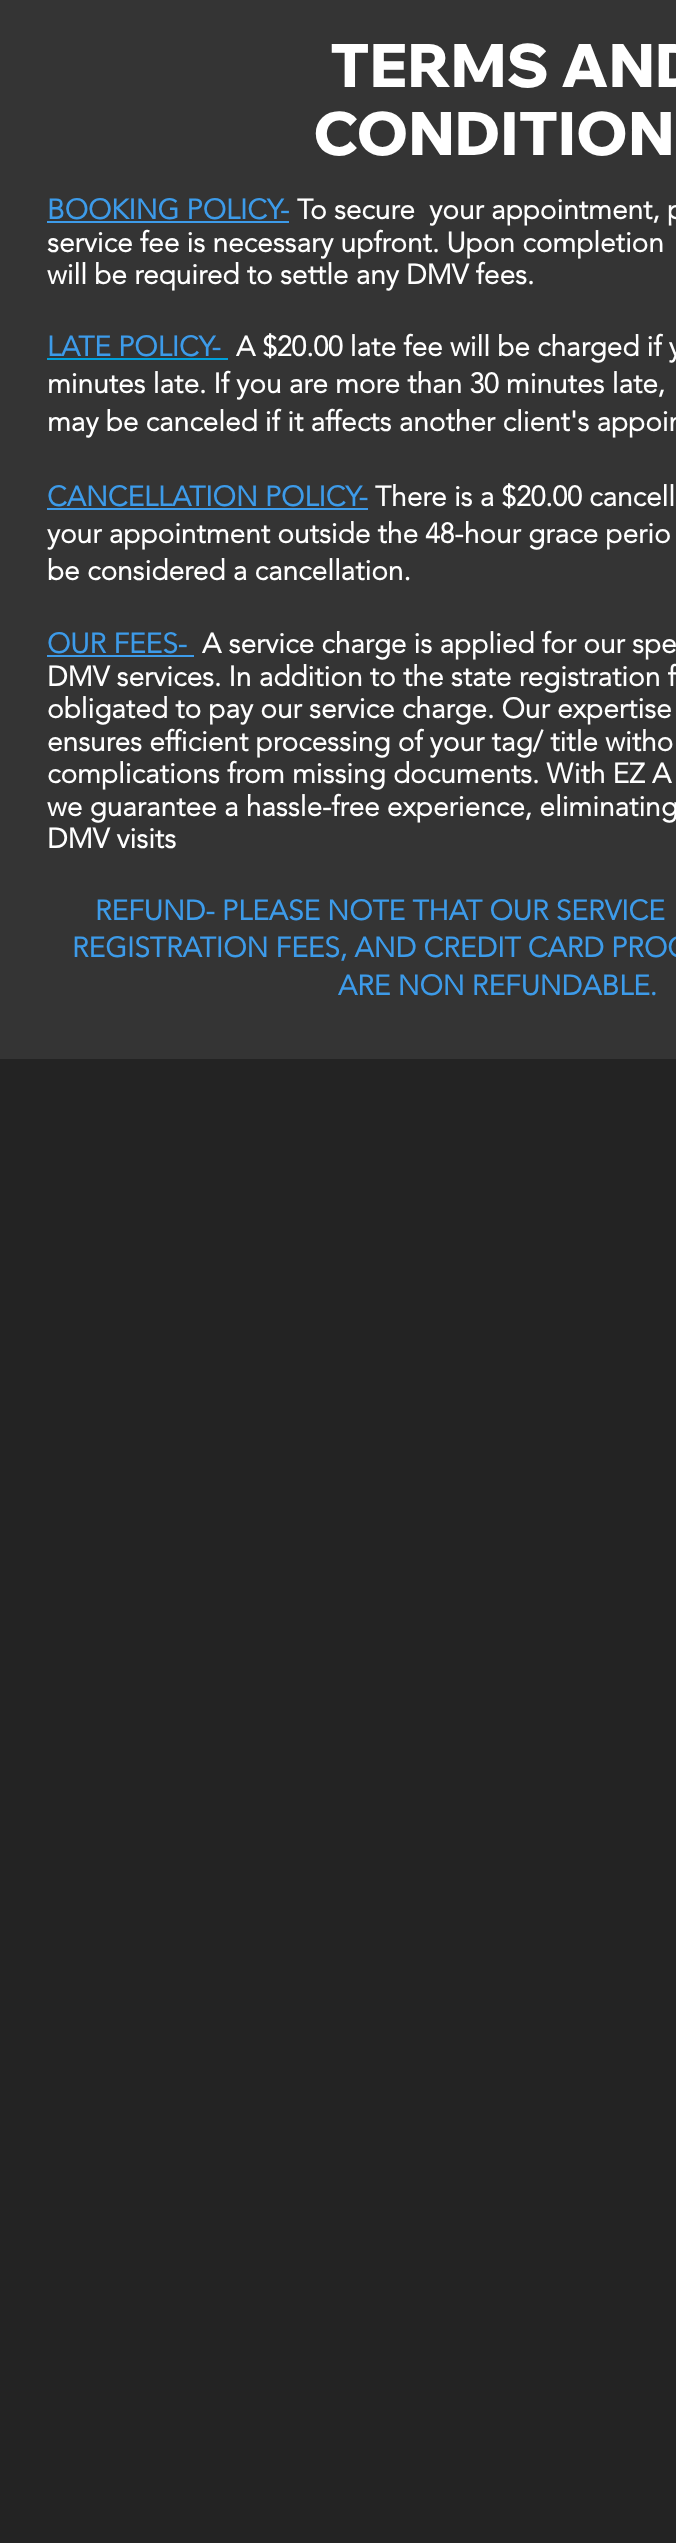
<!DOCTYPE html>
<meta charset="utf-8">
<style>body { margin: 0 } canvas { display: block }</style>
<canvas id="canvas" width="676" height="2543"></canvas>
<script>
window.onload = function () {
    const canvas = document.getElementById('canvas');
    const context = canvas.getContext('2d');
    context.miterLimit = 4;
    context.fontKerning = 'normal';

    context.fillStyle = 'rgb(35, 35, 35)';
    context.fillRect(0, 0, 676, 2543);
    context.fillStyle = 'rgb(52, 52, 52)';
    context.fillRect(0, 0, 676, 1059);
    context.fillStyle = 'rgb(61, 155, 233)';
    context.fillRect(47, 221, 242, 2);
    context.fillStyle = 'rgb(0, 160, 217)';
    context.fillRect(47, 358, 181, 2);
    context.fillStyle = 'rgb(61, 155, 233)';
    context.fillRect(47, 508, 321, 2);
    context.fillRect(47, 655, 147, 2);
    context.font = '800 60px Wix Madefor Display';
    context.fillStyle = 'rgb(255, 255, 255)';
    context.fillText('TERMS AND', 330, 87);
    context.fillText('CONDITION', 313, 155);
    context.font = 'bold 28px "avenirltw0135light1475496"';
    context.fillStyle = 'rgb(61, 155, 233)';
    context.fillText('BOOKING POLICY-', 47, 219);
    context.fillStyle = 'rgb(255, 255, 255)';
    context.fillText('To secure  your appointment, p', 297, 219);
    context.fillText('service fee is necessary upfront. Upon completion', 47, 252);
    context.fillText('will be required to settle any DMV fees.', 47, 284);
    context.fillStyle = 'rgb(61, 155, 233)';
    context.fillText('LATE POLICY-', 47, 356);
    context.fillStyle = 'rgb(255, 255, 255)';
    context.fillText('A $20.00 late fee will be charged if y', 236, 356);
    context.fillText('minutes late. If you are more than 30 minutes late,', 47, 393);
    context.fillText('may be canceled if it affects another client\'s appoin', 47, 431);
    context.fillStyle = 'rgb(61, 155, 233)';
    context.fillText('CANCELLATION POLICY-', 47, 506);
    context.fillStyle = 'rgb(255, 255, 255)';
    context.fillText('There is a $20.00 cancell', 375, 506);
    context.fillText('your appointment outside the 48-hour grace perio', 47, 543);
    context.fillText('be considered a cancellation.', 47, 580);
    context.fillStyle = 'rgb(61, 155, 233)';
    context.fillText('OUR FEES-', 47, 653);
    context.fillStyle = 'rgb(255, 255, 255)';
    context.fillText('A service charge is applied for our spe', 202, 653);
    context.fillText('DMV services. In addition to the state registration f', 47, 686);
    context.fillText('obligated to pay our service charge. Our expertise', 47, 718);
    context.fillText('ensures efficient processing of your tag/ title witho', 47, 751);
    context.fillText('complications from missing documents. With EZ A', 47, 783);
    context.fillText('we guarantee a hassle-free experience, eliminating', 47, 816);
    context.fillText('DMV visits', 47, 848);
    context.fillStyle = 'rgb(61, 155, 233)';
    context.fillText('REFUND- PLEASE NOTE THAT OUR SERVICE', 95, 920);
    context.fillText('REGISTRATION FEES, AND CREDIT CARD PROC', 72, 957);
    context.fillText('ARE NON REFUNDABLE.', 338, 995);
};
</script>
